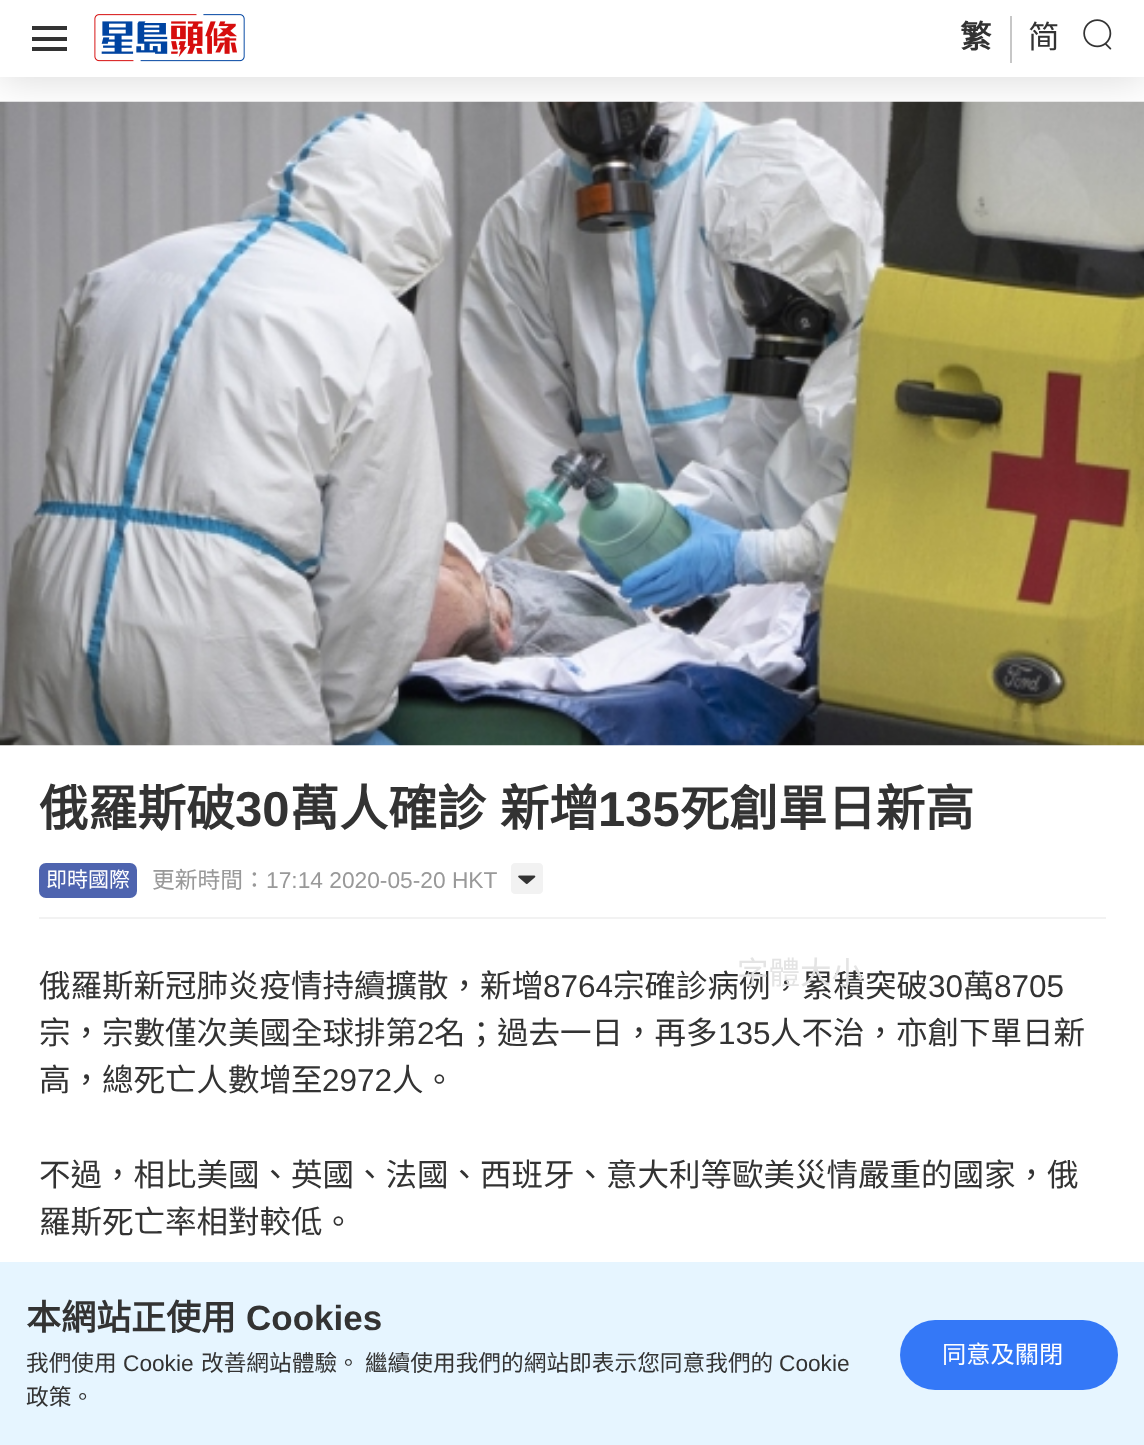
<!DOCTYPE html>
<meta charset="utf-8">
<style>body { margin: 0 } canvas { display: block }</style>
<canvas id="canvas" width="1144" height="1445"></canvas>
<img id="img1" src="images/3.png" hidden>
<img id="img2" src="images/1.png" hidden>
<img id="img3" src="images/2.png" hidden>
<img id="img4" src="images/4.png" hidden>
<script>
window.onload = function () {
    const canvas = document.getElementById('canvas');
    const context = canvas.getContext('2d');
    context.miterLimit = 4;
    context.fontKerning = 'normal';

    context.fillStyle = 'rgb(255, 255, 255)';
    context.fillRect(0, 0, 1144, 1445);
    context.drawImage(document.getElementById('img1'), 0, 101, 1144, 645);
    context.save();
    context.beginPath();
    context.rect(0, 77, 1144, 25);
    context.clip();
    context.fillStyle = 'rgba(0, 0, 0, 0.15)';
    context.filter = 'blur(21px)';
    context.beginPath();
    context.rect(0, 2, 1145, 77);
    context.fill();
    context.filter = 'none';
    context.restore();
    context.fillStyle = 'rgb(51, 51, 51)';
    context.fillRect(32, 26, 35, 4);
    context.fillRect(32, 37, 35, 4);
    context.fillRect(32, 47, 35, 4);
    context.drawImage(document.getElementById('img2'), 94, 14, 151, 48);
    context.fillStyle = 'rgb(199, 199, 199)';
    context.fillRect(1010, 16, 2, 47);
    context.drawImage(document.getElementById('img3'), 1083, 19, 29, 31);
    context.fillStyle = 'rgb(242, 242, 242)';
    context.fillRect(39, 917, 1067, 2);
    context.fillStyle = 'rgb(78, 100, 175)';
    context.beginPath();
    context.roundRect(39, 863, 98, 35, 7);
    context.fill();
    context.drawImage(document.getElementById('img4'), 511, 863, 32, 31);
    context.fillStyle = 'rgb(230, 245, 255)';
    context.fillRect(0, 1262, 1144, 183);
    context.fillStyle = 'rgb(52, 120, 247)';
    context.beginPath();
    context.roundRect(900, 1320, 218, 70, 35);
    context.fill();
    context.font = 'bold 31.5px Noto Sans CJK HK';
    context.fillStyle = 'rgb(51, 51, 51)';
    context.fillText('繁', 960, 48);
    context.font = '31.5px Noto Sans CJK HK';
    context.fillText('简', 1028, 48);
    context.font = 'bold 49px Noto Sans CJK HK';
    context.fillText('俄羅斯破', 39, 826);
    context.font = 'bold 49px Liberation Sans';
    context.fillText('30', 235, 826);
    context.wordSpacing = '3px';
    context.font = 'bold 49px Noto Sans CJK HK';
    context.fillText('萬人確診 新增', 290, 826);
    context.wordSpacing = '0px';
    context.font = 'bold 49px Liberation Sans';
    context.fillText('135', 598, 826);
    context.font = 'bold 49px Noto Sans CJK HK';
    context.fillText('死創單日新高', 680, 826);
    context.font = '21px Noto Sans CJK HK';
    context.fillStyle = 'rgb(255, 255, 255)';
    context.fillText('即時國際', 46, 887);
    context.font = '22.75px Noto Sans CJK HK';
    context.fillStyle = 'rgb(153, 153, 153)';
    context.fillText('更新時間：', 152, 888);
    context.font = '22.75px Liberation Sans';
    context.fillText('17:14 2020-05-20 HKT', 266, 888);
    context.font = '31.5px Noto Sans CJK HK';
    context.fillStyle = 'rgb(51, 51, 51)';
    context.fillText('俄羅斯新冠肺炎疫情持續擴散，新增', 39, 997);
    context.font = '31.5px Liberation Sans';
    context.fillText('8764', 543, 997);
    context.font = '31.5px Noto Sans CJK HK';
    context.fillText('宗確診病例，累積突破', 613, 997);
    context.fillStyle = 'rgb(228, 228, 228)';
    context.fillText('字體大小', 737, 984);
    context.font = '31.5px Liberation Sans';
    context.fillStyle = 'rgb(51, 51, 51)';
    context.fillText('30', 928, 997);
    context.font = '31.5px Noto Sans CJK HK';
    context.fillText('萬', 963, 997);
    context.font = '31.5px Liberation Sans';
    context.fillText('8705', 994, 997);
    context.font = '31.5px Noto Sans CJK HK';
    context.fillText('宗，宗數僅次美國全球排第', 39, 1044);
    context.font = '31.5px Liberation Sans';
    context.fillText('2', 417, 1044);
    context.font = '31.5px Noto Sans CJK HK';
    context.fillText('名；過去一日，再多', 434, 1044);
    context.font = '31.5px Liberation Sans';
    context.fillText('135', 718, 1044);
    context.font = '31.5px Noto Sans CJK HK';
    context.fillText('人不治，亦創下單日新', 770, 1044);
    context.fillText('高，總死亡人數增至', 39, 1091);
    context.font = '31.5px Liberation Sans';
    context.fillText('2972', 322, 1091);
    context.font = '31.5px Noto Sans CJK HK';
    context.fillText('人。', 392, 1091);
    context.fillText('不過，相比美國、英國、法國、西班牙、意大利等歐美災情嚴重的國家，俄', 39, 1186);
    context.fillText('羅斯死亡率相對較低。', 39, 1233);
    context.font = 'bold 35px Noto Sans CJK HK';
    context.fillText('本網站正使用', 26, 1330);
    context.font = 'bold 35px Liberation Sans';
    context.fillText('Cookies', 246, 1330);
    context.font = '22.7px Noto Sans CJK HK';
    context.fillText('我們使用', 26, 1371);
    context.font = '22.7px Liberation Sans';
    context.fillText('Cookie', 123, 1371);
    context.font = '22.7px Noto Sans CJK HK';
    context.fillText('改善網站體驗。 繼續使用我們的網站即表示您同意我們的', 201, 1371);
    context.font = '22.7px Liberation Sans';
    context.fillText('Cookie', 779, 1371);
    context.font = '22.7px Noto Sans CJK HK';
    context.fillText('政策。', 26, 1405);
    context.font = '24.25px Noto Sans CJK HK';
    context.fillStyle = 'rgb(255, 255, 255)';
    context.fillText('同意及關閉', 942, 1363);
};
</script>
